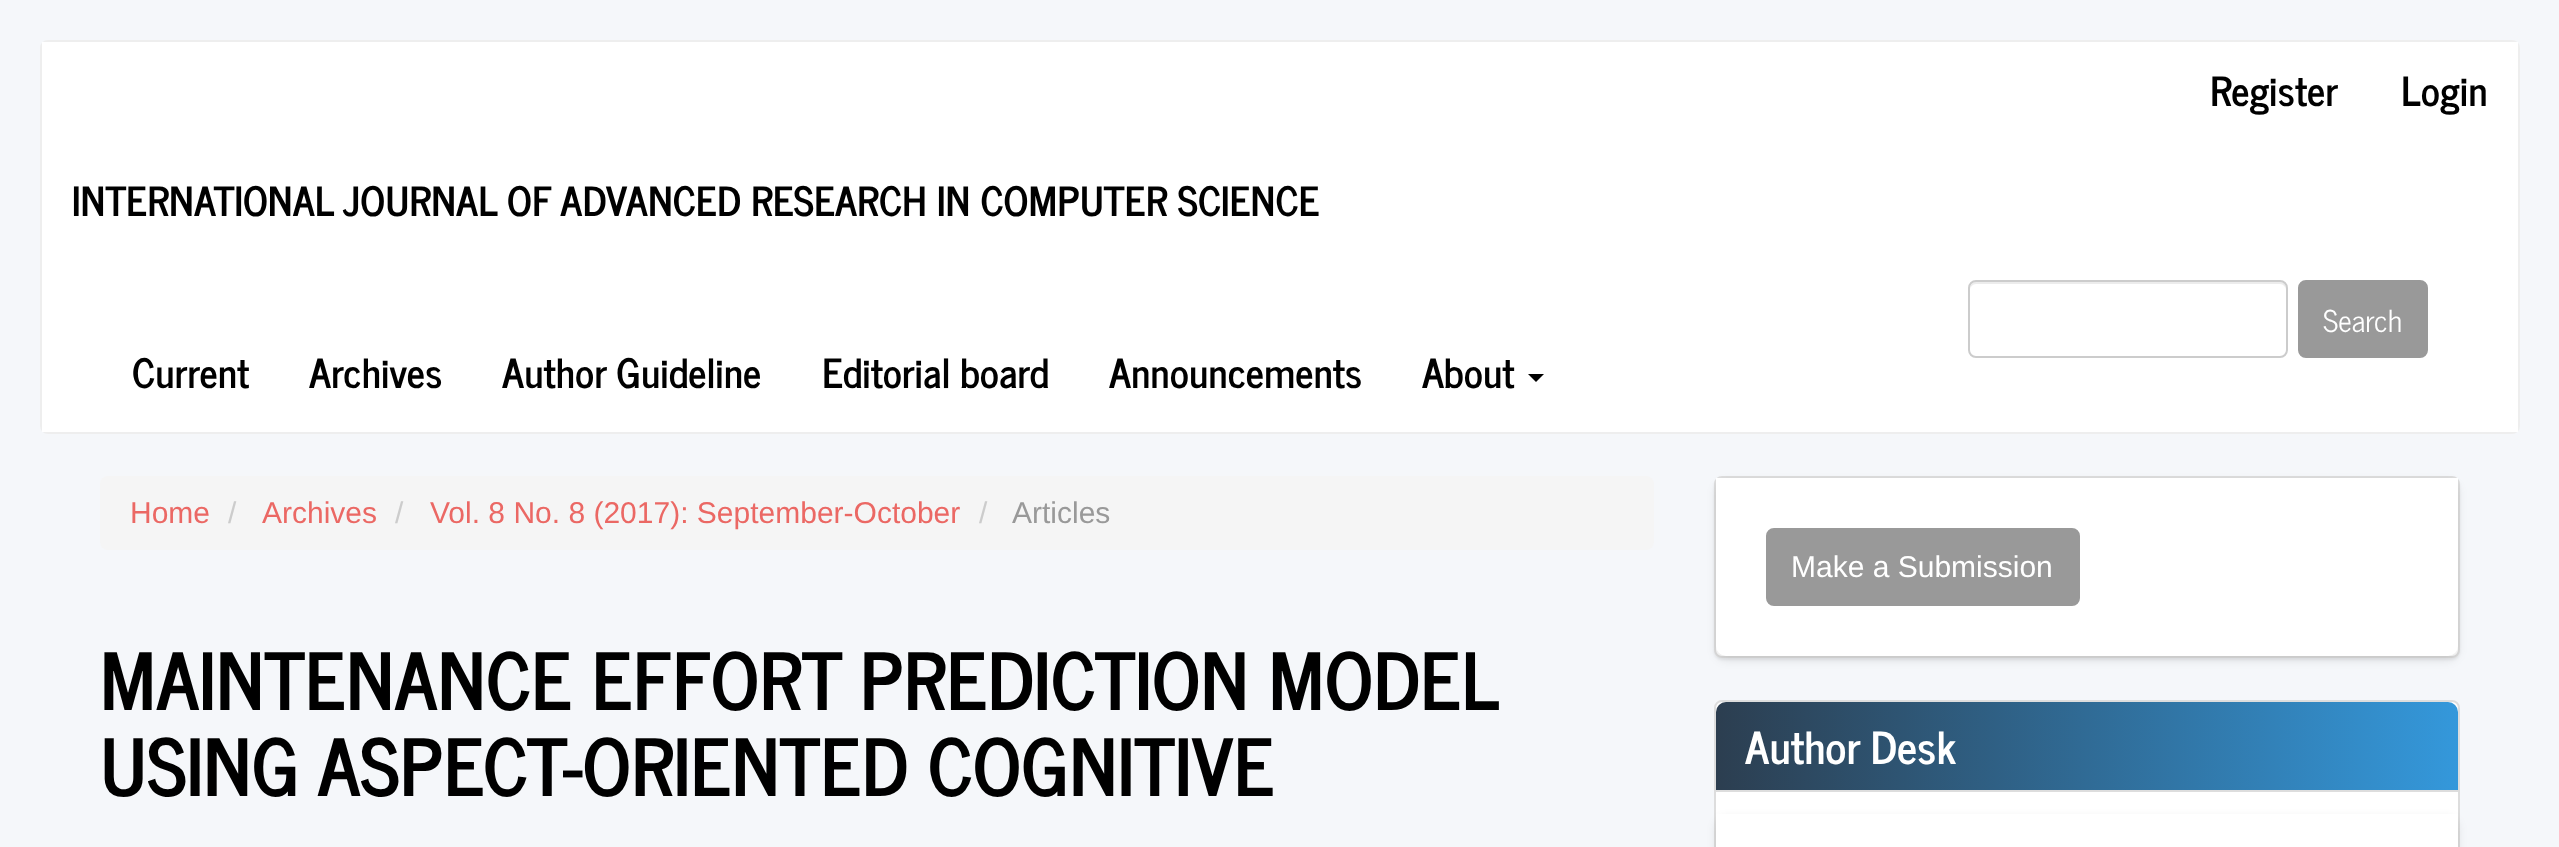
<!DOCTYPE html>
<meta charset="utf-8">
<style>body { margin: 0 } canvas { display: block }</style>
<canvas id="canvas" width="2559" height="847"></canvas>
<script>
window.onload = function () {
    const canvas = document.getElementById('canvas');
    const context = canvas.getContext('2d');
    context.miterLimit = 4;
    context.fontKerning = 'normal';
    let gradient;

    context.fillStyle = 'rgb(245, 247, 250)';
    context.fillRect(0, 0, 2559, 847);
    context.beginPath();
    context.roundRect(41, 41, 2478, 392, 7);
    context.strokeStyle = 'rgb(238, 238, 238)';
    context.lineWidth = 2;
    context.stroke();
    context.fillStyle = 'rgb(255, 255, 255)';
    context.fillRect(42, 42, 2476, 390);
    context.fillStyle = 'rgb(236, 236, 236)';
    context.beginPath();
    context.moveTo(1976, 284);
    context.lineTo(2280, 284);
    context.bezierCurveTo(2283, 284, 2286, 287, 2286, 290);
    context.bezierCurveTo(2286, 286, 2285, 282, 2280, 282);
    context.lineTo(1975, 282);
    context.bezierCurveTo(1971, 283, 1970, 287, 1970, 290);
    context.bezierCurveTo(1970, 287, 1973, 284, 1976, 284);
    context.closePath();
    context.fill();
    context.beginPath();
    context.roundRect(1969, 281, 318, 76, 7);
    context.strokeStyle = 'rgb(204, 204, 204)';
    context.stroke();
    context.fillStyle = 'rgb(153, 153, 153)';
    context.beginPath();
    context.roundRect(2299, 281, 128, 76, 7);
    context.fill();
    context.strokeStyle = 'rgb(153, 153, 153)';
    context.stroke();
    context.fillStyle = 'rgb(0, 0, 0)';
    context.beginPath();
    context.moveTo(1528, 374);
    context.lineTo(1544, 374);
    context.lineTo(1536, 382);
    context.closePath();
    context.fill();
    context.fillStyle = 'rgb(245, 245, 245)';
    context.beginPath();
    context.roundRect(100, 476, 1554, 74, 8);
    context.fill();
    context.fillStyle = 'rgba(0, 0, 0, 0.05)';
    context.filter = 'blur(1px)';
    context.beginPath();
    context.roundRect(1714, 478, 746, 182, 8);
    context.fill();
    context.filter = 'none';
    context.fillStyle = 'rgb(255, 255, 255)';
    context.beginPath();
    context.roundRect(1715, 477, 744, 180, 7);
    context.fill();
    context.strokeStyle = 'rgb(221, 221, 221)';
    context.stroke();
    context.fillStyle = 'rgba(0, 0, 0, 0.1)';
    context.filter = 'blur(5px)';
    context.beginPath();
    context.roundRect(1716, 482, 742, 178, 10);
    context.fill();
    context.filter = 'none';
    context.fillStyle = 'rgb(255, 255, 255)';
    context.beginPath();
    context.roundRect(1716, 478, 742, 178, [0, 0, 10, 10]);
    context.fill();
    context.fillStyle = 'rgb(153, 153, 153)';
    context.beginPath();
    context.roundRect(1767, 529, 312, 76, 7);
    context.fill();
    context.strokeStyle = 'rgb(153, 153, 153)';
    context.stroke();
    context.fillStyle = 'rgb(255, 255, 255)';
    context.beginPath();
    context.roundRect(1715, 701, 744, 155, 7);
    context.fill();
    context.strokeStyle = 'rgb(221, 221, 221)';
    context.stroke();
    gradient = context.createLinearGradient(1716, 746, 2458, 746);
    gradient.addColorStop(0, 'rgb(44, 62, 80)');
    gradient.addColorStop(1, 'rgb(52, 152, 219)');
    context.fillStyle = gradient;
    context.beginPath();
    context.roundRect(1716, 702, 742, 90, [10, 10, 0, 0]);
    context.fill();
    context.fillStyle = 'rgb(221, 221, 221)';
    context.fillRect(1716, 790, 742, 2);
    context.save();
    context.beginPath();
    context.moveTo(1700, 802);
    context.lineTo(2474, 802);
    context.lineTo(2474, 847);
    context.lineTo(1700, 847);
    context.closePath();
    context.moveTo(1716, 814);
    context.lineTo(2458, 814);
    context.lineTo(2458, 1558);
    context.bezierCurveTo(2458, 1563.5, 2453.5, 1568, 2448, 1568);
    context.lineTo(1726, 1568);
    context.bezierCurveTo(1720.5, 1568, 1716, 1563.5, 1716, 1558);
    context.closePath();
    context.clip('evenodd');
    context.fillStyle = 'rgba(0, 0, 0, 0.1)';
    context.filter = 'blur(5px)';
    context.beginPath();
    context.roundRect(1716, 818, 742, 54, 10);
    context.fill();
    context.filter = 'none';
    context.restore();
    context.font = 'bold 40px News Cycle';
    context.fillStyle = 'rgb(0, 0, 0)';
    context.fillText('Register', 2210, 106);
    context.fillText('Login', 2401, 106);
    context.fillText('INTERNATIONAL JOURNAL OF ADVANCED RESEARCH IN COMPUTER SCIENCE', 72, 216);
    context.font = '30px News Cycle';
    context.fillStyle = 'rgb(255, 255, 255)';
    context.fillText('Search', 2323, 332);
    context.font = 'bold 40px News Cycle';
    context.fillStyle = 'rgb(0, 0, 0)';
    context.fillText('Current', 132, 388);
    context.fillText('Archives', 309, 388);
    context.fillText('Author Guideline', 502, 388);
    context.fillText('Editorial board', 822, 388);
    context.fillText('Announcements', 1109, 388);
    context.fillText('About', 1422, 388);
    context.font = '30px Liberation Sans';
    context.fillStyle = 'rgb(235, 104, 100)';
    context.fillText('Home', 130, 523);
    context.fillStyle = 'rgb(204, 204, 204)';
    context.fillText('/', 228, 523);
    context.fillStyle = 'rgb(235, 104, 100)';
    context.fillText('Archives', 262, 523);
    context.fillStyle = 'rgb(204, 204, 204)';
    context.fillText('/', 395, 523);
    context.fillStyle = 'rgb(235, 104, 100)';
    context.fillText('Vol. 8 No. 8 (2017): September-October', 430, 523);
    context.fillStyle = 'rgb(204, 204, 204)';
    context.fillText('/', 979, 523);
    context.fillStyle = 'rgb(153, 153, 153)';
    context.fillText('Articles', 1012, 523);
    context.font = 'bold 78px News Cycle';
    context.fillStyle = 'rgb(0, 0, 0)';
    context.fillText('MAINTENANCE EFFORT PREDICTION MODEL', 100, 710);
    context.fillText('USING ASPECT-ORIENTED COGNITIVE', 100, 796);
    context.font = '30px Liberation Sans';
    context.fillStyle = 'rgb(255, 255, 255)';
    context.fillText('Make a Submission', 1791, 577);
    context.font = 'bold 44px News Cycle';
    context.fillText('Author Desk', 1745, 764);
};
</script>
